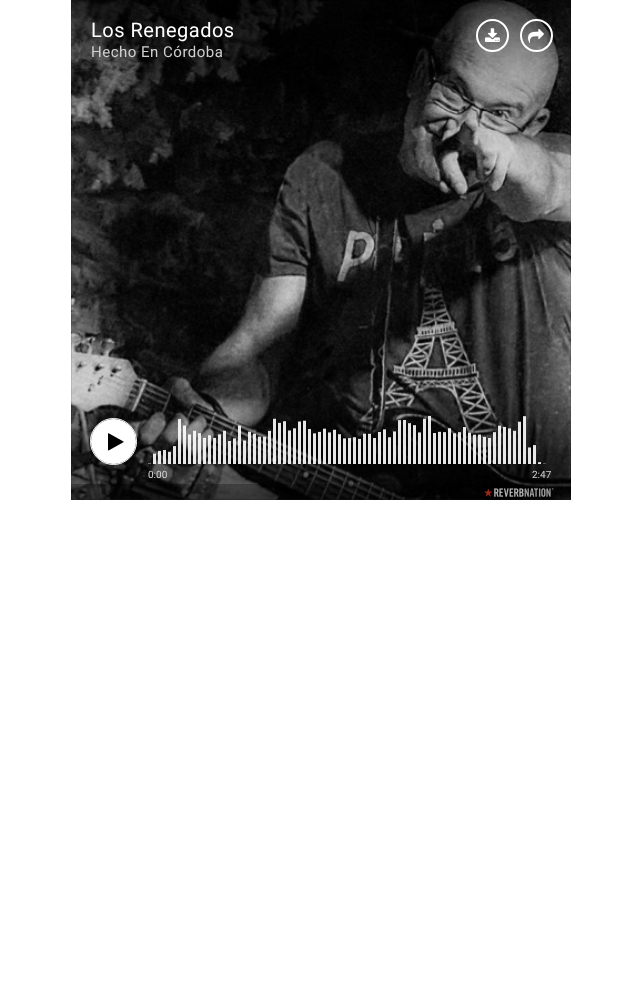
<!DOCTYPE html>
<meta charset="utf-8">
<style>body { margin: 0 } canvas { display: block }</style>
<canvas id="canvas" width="642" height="1007"></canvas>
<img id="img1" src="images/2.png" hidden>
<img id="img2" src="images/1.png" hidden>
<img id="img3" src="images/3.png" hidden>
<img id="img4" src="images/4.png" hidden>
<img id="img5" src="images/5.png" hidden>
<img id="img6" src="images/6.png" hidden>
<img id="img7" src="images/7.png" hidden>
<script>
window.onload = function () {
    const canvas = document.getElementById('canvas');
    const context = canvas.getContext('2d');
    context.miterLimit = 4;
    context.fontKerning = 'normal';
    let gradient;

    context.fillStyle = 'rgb(255, 255, 255)';
    context.fillRect(0, 0, 642, 1007);
    context.drawImage(document.getElementById('img1'), 71, 499, 500, 1);
    context.drawImage(document.getElementById('img2'), 71, 0, 500, 500);
    context.fillStyle = 'rgba(0, 0, 0, 0.1)';
    context.beginPath();
    context.moveTo(71, 0);
    context.lineTo(571, 0);
    context.lineTo(570, 1);
    context.lineTo(72, 1);
    context.closePath();
    context.fill();
    gradient = context.createLinearGradient(321, 400, 321, 500);
    gradient.addColorStop(0, 'rgba(0, 0, 0, 0)');
    gradient.addColorStop(0.5, 'rgba(0, 0, 0, 0.4)');
    gradient.addColorStop(1, 'rgba(0, 0, 0, 0.6)');
    context.fillStyle = gradient;
    context.fillRect(71, 403, 500, 97);
    context.fillStyle = 'rgba(0, 0, 0, 0.1)';
    context.beginPath();
    context.moveTo(571, 0);
    context.lineTo(571, 500);
    context.lineTo(570, 500);
    context.lineTo(570, 1);
    context.closePath();
    context.fill();
    context.beginPath();
    context.moveTo(71, 500);
    context.lineTo(71, 0);
    context.lineTo(72, 1);
    context.lineTo(72, 500);
    context.closePath();
    context.fill();
    context.fillRect(71, 499, 500, 1);
    context.beginPath();
    context.arc(492.5, 35.5, 15.5, 0, 2 * Math.PI);
    context.strokeStyle = 'rgb(255, 255, 255)';
    context.lineWidth = 2;
    context.stroke();
    context.drawImage(document.getElementById('img3'), 485, 28, 15, 14);
    context.beginPath();
    context.arc(536.5, 35.5, 15.5, 0, 2 * Math.PI);
    context.stroke();
    context.drawImage(document.getElementById('img4'), 528, 28, 16, 16);
    context.drawImage(document.getElementById('img5'), 148, 415, 398, 49);
    context.beginPath();
    context.arc(113.5, 441.5, 23, 0, 2 * Math.PI);
    context.lineWidth = 1;
    context.stroke();
    context.fillStyle = 'rgb(255, 255, 255)';
    context.beginPath();
    context.arc(113.5, 441.5, 22.5, 0, 2 * Math.PI);
    context.fill();
    context.drawImage(document.getElementById('img6'), 108, 433, 16, 18);
    context.fillStyle = 'rgba(0, 0, 0, 0.25)';
    context.fillRect(71, 484, 500, 16);
    context.drawImage(document.getElementById('img7'), 484, 488, 70, 9);
    context.letterSpacing = '0.5px';
    context.font = '20px Roboto';
    context.fillStyle = 'rgb(255, 255, 255)';
    context.fillText('Los Renegados', 91, 37);
    context.font = '15px Roboto';
    context.fillStyle = 'rgb(208, 208, 208)';
    context.fillText('Hecho En Córdoba', 91, 57);
    context.letterSpacing = '0px';
    context.font = '10px Roboto';
    context.fillStyle = 'rgb(216, 216, 216)';
    context.fillText('0:00', 148, 478);
    context.fillStyle = 'rgb(208, 208, 208)';
    context.fillText('2:47', 532, 478);
};
</script>
